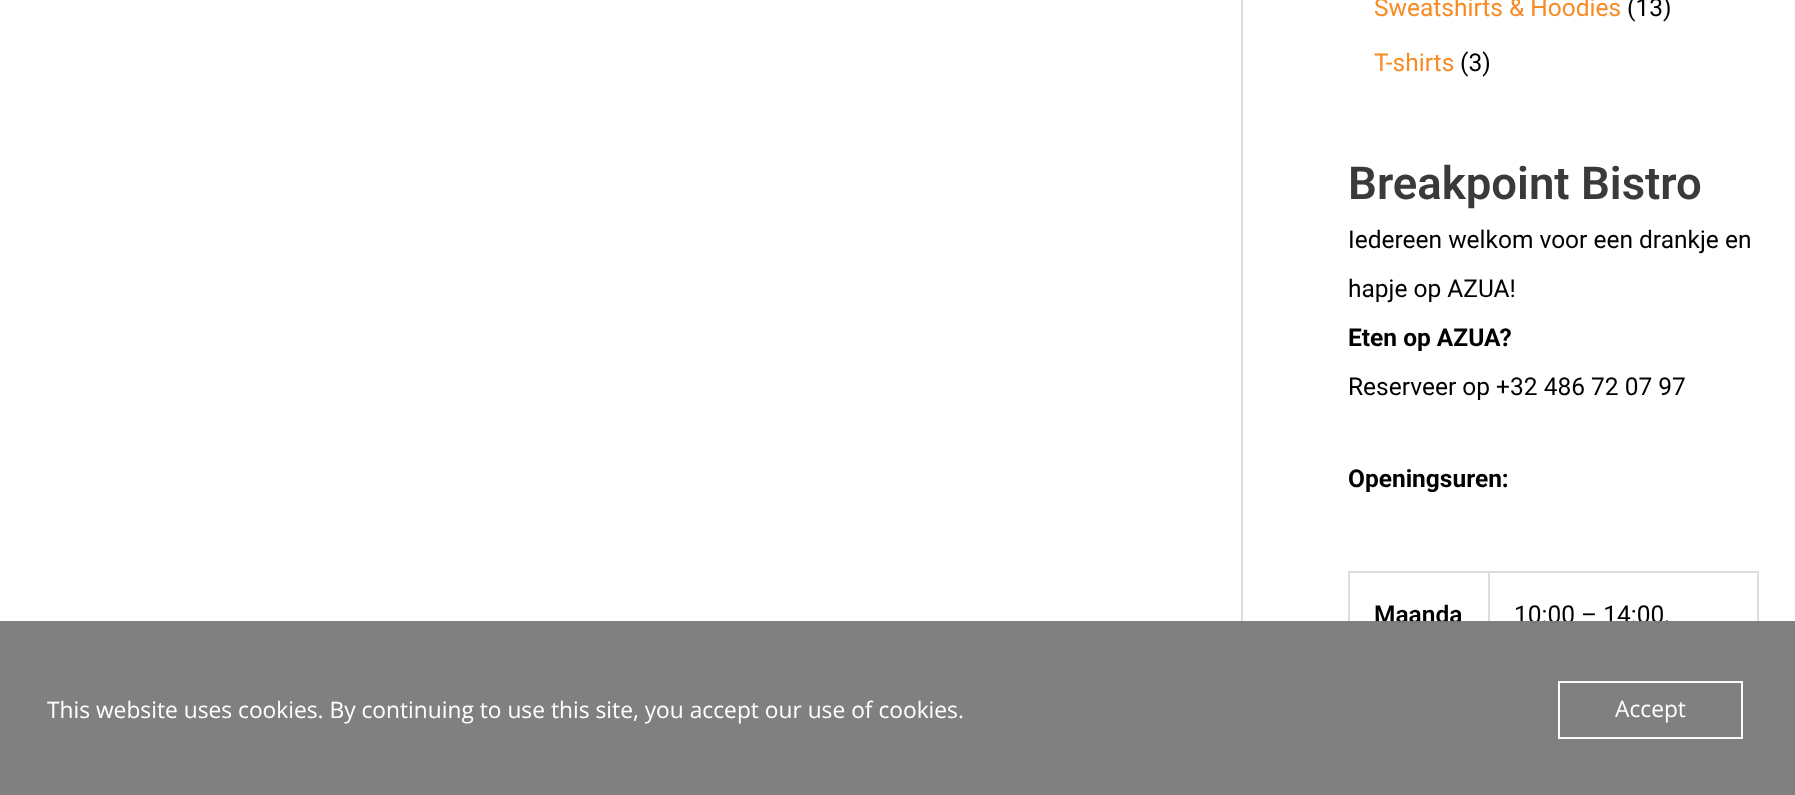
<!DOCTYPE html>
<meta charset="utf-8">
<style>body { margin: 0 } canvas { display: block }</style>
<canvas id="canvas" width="1795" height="795"></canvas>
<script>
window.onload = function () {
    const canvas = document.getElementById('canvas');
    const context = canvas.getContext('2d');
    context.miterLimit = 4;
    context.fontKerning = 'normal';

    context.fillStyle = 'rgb(255, 255, 255)';
    context.fillRect(0, 0, 1795, 795);
    context.fillStyle = 'rgb(221, 221, 221)';
    context.fillRect(1241, 0, 2, 795);
    context.fillRect(1348, 571, 411, 2);
    context.fillRect(1348, 571, 2, 224);
    context.fillRect(1488, 572, 2, 223);
    context.fillRect(1349, 705, 140, 2);
    context.fillRect(1757, 572, 2, 223);
    context.fillRect(1489, 705, 270, 2);
    context.font = '24.5px Roboto';
    context.fillStyle = 'rgb(249, 139, 36)';
    context.fillText('Sweatshirts & Hoodies', 1374, 16);
    context.fillStyle = 'rgb(0, 0, 0)';
    context.fillText('(13)', 1627, 16);
    context.fillStyle = 'rgb(249, 139, 36)';
    context.fillText('T-shirts', 1374, 71);
    context.fillStyle = 'rgb(0, 0, 0)';
    context.fillText('(3)', 1460, 71);
    context.font = '600 45.5px Roboto';
    context.fillStyle = 'rgb(58, 58, 58)';
    context.fillText('Breakpoint Bistro', 1348, 199);
    context.font = '24.5px Roboto';
    context.fillStyle = 'rgb(0, 0, 0)';
    context.fillText('Iedereen welkom voor een drankje en', 1348, 248);
    context.fillText('hapje op AZUA!', 1348, 297);
    context.font = 'bold 24.5px Roboto';
    context.fillText('Eten op AZUA?', 1348, 346);
    context.font = '24.5px Roboto';
    context.fillText('Reserveer op +32 486 72 07 97', 1348, 395);
    context.font = 'bold 24.5px Roboto';
    context.fillText('Openingsuren:', 1348, 487);
    context.font = '600 24.5px Roboto';
    context.fillText('Maanda', 1374, 623);
    context.font = '24.5px Roboto';
    context.fillText('10:00 – 14:00,', 1514, 623);
    context.fillStyle = 'rgba(124, 124, 124, 0.97)';
    context.fillRect(0, 621, 1795, 174);
    context.font = '22.75px Open Sans';
    context.fillStyle = 'rgb(255, 255, 255)';
    context.fillText('This website uses cookies. By continuing to use this site, you accept our use of cookies.', 47, 718);
    context.strokeStyle = 'rgb(251, 251, 251)';
    context.lineWidth = 2;
    context.strokeRect(1559, 682, 183, 56);
    context.fillText('Accept', 1615, 717);
};
</script>
